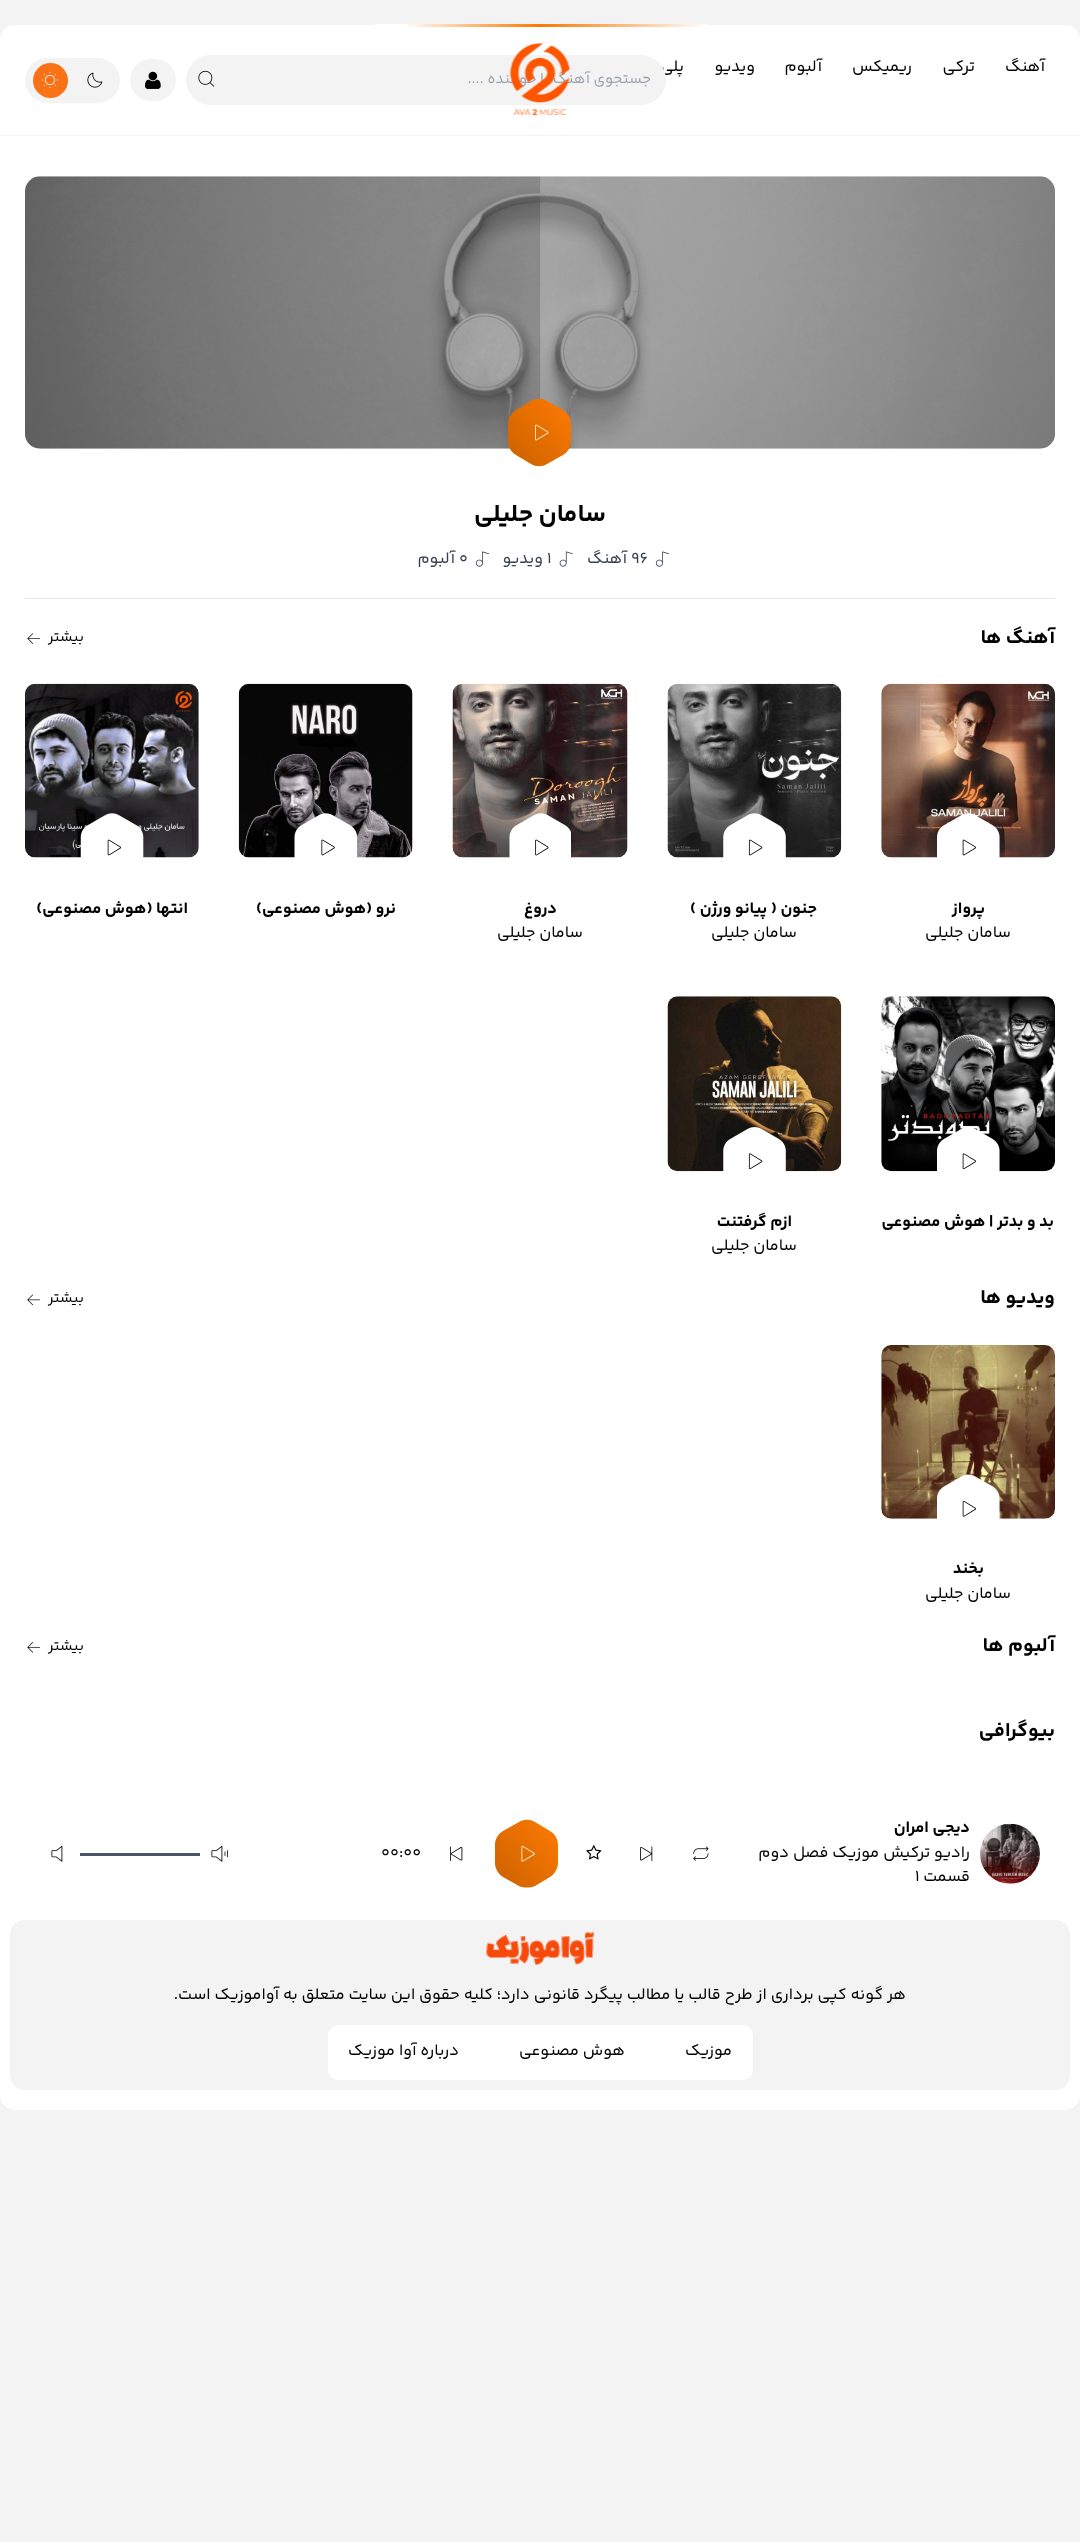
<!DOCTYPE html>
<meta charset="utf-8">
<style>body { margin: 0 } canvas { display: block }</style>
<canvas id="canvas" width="1080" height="2542"></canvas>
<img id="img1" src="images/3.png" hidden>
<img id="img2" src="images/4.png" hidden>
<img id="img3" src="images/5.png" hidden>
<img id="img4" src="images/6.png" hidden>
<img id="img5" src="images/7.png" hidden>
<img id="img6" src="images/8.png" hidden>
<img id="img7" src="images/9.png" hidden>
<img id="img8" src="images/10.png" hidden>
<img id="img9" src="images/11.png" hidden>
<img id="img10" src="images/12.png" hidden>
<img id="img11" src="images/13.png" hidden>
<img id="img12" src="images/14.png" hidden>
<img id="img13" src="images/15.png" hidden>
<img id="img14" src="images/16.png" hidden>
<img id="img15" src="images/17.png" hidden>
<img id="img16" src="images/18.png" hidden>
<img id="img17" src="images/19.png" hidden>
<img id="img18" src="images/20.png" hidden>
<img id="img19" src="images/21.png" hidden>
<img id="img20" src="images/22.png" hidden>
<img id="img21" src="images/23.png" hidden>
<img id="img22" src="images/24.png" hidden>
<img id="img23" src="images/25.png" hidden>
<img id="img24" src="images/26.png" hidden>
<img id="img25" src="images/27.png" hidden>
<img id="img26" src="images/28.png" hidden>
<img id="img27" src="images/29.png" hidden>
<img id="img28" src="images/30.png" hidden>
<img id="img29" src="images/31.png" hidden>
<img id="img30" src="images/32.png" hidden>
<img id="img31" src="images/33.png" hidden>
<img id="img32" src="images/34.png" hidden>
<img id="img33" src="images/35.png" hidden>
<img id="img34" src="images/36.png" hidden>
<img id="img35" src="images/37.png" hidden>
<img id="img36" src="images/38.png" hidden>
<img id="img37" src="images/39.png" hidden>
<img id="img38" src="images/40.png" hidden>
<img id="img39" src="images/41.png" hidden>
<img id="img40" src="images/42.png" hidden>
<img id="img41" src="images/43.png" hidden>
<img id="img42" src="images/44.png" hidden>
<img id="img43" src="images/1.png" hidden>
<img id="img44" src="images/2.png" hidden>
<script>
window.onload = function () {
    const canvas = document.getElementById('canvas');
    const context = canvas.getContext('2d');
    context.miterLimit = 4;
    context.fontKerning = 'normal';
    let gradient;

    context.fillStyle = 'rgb(243, 243, 243)';
    context.fillRect(0, 0, 1080, 2542);
    context.fillStyle = 'rgb(255, 255, 255)';
    context.beginPath();
    context.roundRect(0, 25, 1080, 2085, 15);
    context.fill();
    context.beginPath();
    context.roundRect(0, 25, 1080, 110, [15, 15, 0, 0]);
    context.fill();
    context.fillStyle = 'rgb(243, 244, 246)';
    context.fillRect(0, 135, 1080, 1);
    gradient = context.createLinearGradient(672, 93, 408, -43);
    gradient.addColorStop(0, 'rgb(255, 255, 255)');
    gradient.addColorStop(0.5, 'rgb(250, 120, 0)');
    gradient.addColorStop(0.91, 'rgb(255, 255, 255)');
    context.fillStyle = gradient;
    context.fillRect(374, 24, 332, 3);
    context.fillStyle = 'rgb(243, 243, 243)';
    context.beginPath();
    context.roundRect(130, 59, 46, 42, 21);
    context.fill();
    context.drawImage(document.getElementById('img1'), 145, 71, 16, 18);
    context.beginPath();
    context.roundRect(25, 58, 95, 45, 22.5);
    context.fill();
    context.drawImage(document.getElementById('img2'), 87, 72, 16, 16);
    context.fillStyle = 'rgb(249, 115, 22)';
    context.beginPath();
    context.arc(50.5, 80.5, 17.5, 0, 2 * Math.PI);
    context.fill();
    context.drawImage(document.getElementById('img3'), 41, 71, 18, 18);
    context.drawImage(document.getElementById('img4'), 25, 176, 1030, 273);
    gradient = context.createLinearGradient(565, 406, 513, 451);
    gradient.addColorStop(0, 'rgb(250, 120, 0)');
    gradient.addColorStop(1, 'rgb(210, 101, 0)');
    context.fillStyle = gradient;
    context.beginPath();
    context.moveTo(531, 401);
    context.bezierCurveTo(536, 398, 542, 398, 547, 401);
    context.lineTo(563, 410);
    context.bezierCurveTo(568, 413, 571, 418, 571, 424);
    context.lineTo(571, 441);
    context.bezierCurveTo(571, 447, 568, 452, 563, 455);
    context.lineTo(547, 464);
    context.bezierCurveTo(542, 467, 536, 467, 531, 464);
    context.lineTo(516, 455);
    context.bezierCurveTo(511, 452, 508, 447, 508, 441);
    context.lineTo(508, 424);
    context.bezierCurveTo(508, 418, 511, 413, 516, 410);
    context.closePath();
    context.fill();
    context.drawImage(document.getElementById('img5'), 535, 424, 14, 17);
    context.fillStyle = 'rgb(229, 231, 235)';
    context.fillRect(25, 598, 1030, 1);
    context.drawImage(document.getElementById('img6'), 655, 551, 15, 16);
    context.drawImage(document.getElementById('img7'), 559, 551, 14, 16);
    context.drawImage(document.getElementById('img6'), 475, 551, 15, 16);
    context.drawImage(document.getElementById('img8'), 27, 633, 14, 11);
    context.drawImage(document.getElementById('img9'), 881, 683, 174, 175);
    context.drawImage(document.getElementById('img10'), 937, 813, 63, 45);
    context.drawImage(document.getElementById('img11'), 962, 839, 14, 17);
    context.drawImage(document.getElementById('img12'), 667, 683, 175, 175);
    context.drawImage(document.getElementById('img13'), 723, 813, 63, 45);
    context.drawImage(document.getElementById('img14'), 748, 839, 15, 17);
    context.drawImage(document.getElementById('img15'), 452, 683, 176, 175);
    context.drawImage(document.getElementById('img16'), 509, 813, 62, 45);
    context.drawImage(document.getElementById('img17'), 535, 839, 14, 17);
    context.drawImage(document.getElementById('img18'), 238, 683, 175, 175);
    context.drawImage(document.getElementById('img19'), 294, 813, 64, 45);
    context.drawImage(document.getElementById('img20'), 321, 839, 14, 17);
    context.drawImage(document.getElementById('img21'), 25, 683, 174, 175);
    context.drawImage(document.getElementById('img22'), 80, 813, 64, 45);
    context.drawImage(document.getElementById('img11'), 107, 839, 14, 17);
    context.drawImage(document.getElementById('img23'), 881, 996, 174, 176);
    context.drawImage(document.getElementById('img24'), 937, 1128, 63, 44);
    context.drawImage(document.getElementById('img25'), 962, 1153, 14, 17);
    context.drawImage(document.getElementById('img26'), 667, 996, 175, 176);
    context.drawImage(document.getElementById('img27'), 723, 1127, 63, 45);
    context.drawImage(document.getElementById('img28'), 748, 1153, 15, 17);
    context.drawImage(document.getElementById('img29'), 27, 1294, 14, 12);
    context.drawImage(document.getElementById('img30'), 881, 1345, 174, 174);
    context.drawImage(document.getElementById('img31'), 937, 1474, 63, 45);
    context.drawImage(document.getElementById('img32'), 962, 1500, 14, 17);
    context.drawImage(document.getElementById('img33'), 27, 1642, 14, 11);
    context.drawImage(document.getElementById('img34'), 980, 1823, 60, 61);
    context.drawImage(document.getElementById('img35'), 693, 1846, 16, 15);
    context.drawImage(document.getElementById('img36'), 640, 1846, 13, 15);
    context.drawImage(document.getElementById('img37'), 586, 1845, 16, 15);
    gradient = context.createLinearGradient(553, 1828, 500, 1873);
    gradient.addColorStop(0, 'rgb(250, 120, 0)');
    gradient.addColorStop(1, 'rgb(210, 101, 0)');
    context.fillStyle = gradient;
    context.beginPath();
    context.moveTo(519, 1822);
    context.bezierCurveTo(524, 1819, 530, 1819, 535, 1822);
    context.lineTo(550, 1831);
    context.bezierCurveTo(555, 1834, 558, 1839, 558, 1845);
    context.lineTo(558, 1863);
    context.bezierCurveTo(558, 1868, 555, 1874, 550, 1877);
    context.lineTo(535, 1886);
    context.bezierCurveTo(530, 1888, 524, 1888, 519, 1886);
    context.lineTo(503, 1877);
    context.bezierCurveTo(498, 1874, 495, 1868, 495, 1863);
    context.lineTo(495, 1845);
    context.bezierCurveTo(495, 1839, 498, 1834, 503, 1831);
    context.closePath();
    context.fill();
    context.drawImage(document.getElementById('img38'), 521, 1845, 14, 17);
    context.drawImage(document.getElementById('img39'), 450, 1846, 13, 15);
    context.drawImage(document.getElementById('img40'), 211, 1845, 17, 17);
    context.fillStyle = 'rgb(75, 85, 99)';
    context.fillRect(80, 1853, 120, 3);
    context.drawImage(document.getElementById('img41'), 51, 1845, 12, 17);
    context.fillStyle = 'rgb(243, 243, 243)';
    context.beginPath();
    context.roundRect(10, 1920, 1060, 170, 15);
    context.fill();
    context.drawImage(document.getElementById('img42'), 486, 1931, 108, 34);
    context.fillStyle = 'rgb(255, 255, 255)';
    context.beginPath();
    context.roundRect(328, 2025, 425, 55, 10);
    context.fill();
    context.direction = 'rtl';
    context.font = '16.25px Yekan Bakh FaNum';
    context.fillStyle = 'rgb(0, 0, 0)';
    context.fillText('آهنگ', 1045, 71);
    context.fillText('ترکی', 975, 71);
    context.fillText('ریمیکس', 912, 71);
    context.fillText('آلبوم', 822, 71);
    context.fillText('ویدیو', 755, 71);
    context.fillText('پلی', 684, 71);
    context.fillStyle = 'rgb(243, 243, 243)';
    context.beginPath();
    context.roundRect(186, 55, 480, 50, 25);
    context.fill();
    context.font = '15px Yekan Bakh FaNum';
    context.fillStyle = 'rgb(156, 163, 175)';
    context.fillText('جستجوی آهنگ یا خواننده ....', 651, 83);
    context.drawImage(document.getElementById('img43'), 509, 43, 62, 73);
    context.drawImage(document.getElementById('img44'), 198, 70, 17, 17);
    context.font = 'bold 25px Yekan Bakh FaNum';
    context.fillStyle = 'rgb(0, 0, 0)';
    context.fillText('سامان جلیلی', 606, 521);
    context.direction = 'ltr';
    context.font = '16.25px Yekan Bakh FaNum';
    context.fillStyle = 'rgb(55, 65, 81)';
    context.fillText('96', 631, 563);
    context.direction = 'rtl';
    context.fillText('آهنگ', 627, 563);
    context.direction = 'ltr';
    context.fillText('1', 547, 563);
    context.direction = 'rtl';
    context.fillText('ویدیو', 543, 563);
    context.direction = 'ltr';
    context.fillText('0', 459, 563);
    context.direction = 'rtl';
    context.fillText('آلبوم', 455, 563);
    context.font = 'bold 20px Yekan Bakh FaNum';
    context.fillStyle = 'rgb(0, 0, 0)';
    context.fillText('آهنگ ها', 1055, 643);
    context.font = '15px Yekan Bakh FaNum';
    context.fillText('بیشتر', 84, 641);
    context.font = 'bold 16.25px Yekan Bakh FaNum';
    context.fillText('پرواز', 985, 913);
    context.font = '16.25px Yekan Bakh FaNum';
    context.fillText('سامان جلیلی', 1011, 937);
    context.font = 'bold 16.25px Yekan Bakh FaNum';
    context.fillText('جنون ( پیانو ورژن )', 817, 913);
    context.font = '16.25px Yekan Bakh FaNum';
    context.fillText('سامان جلیلی', 797, 937);
    context.font = 'bold 16.25px Yekan Bakh FaNum';
    context.fillText('دروغ', 557, 913);
    context.font = '16.25px Yekan Bakh FaNum';
    context.fillText('سامان جلیلی', 583, 937);
    context.font = 'bold 16.25px Yekan Bakh FaNum';
    context.fillText('نرو (هوش مصنوعی)', 396, 913);
    context.fillText('انتها (هوش مصنوعی)', 188, 913);
    context.fillText('بد و بدتر | هوش مصنوعی', 1054, 1226);
    context.fillText('ازم گرفتنت', 792, 1226);
    context.font = '16.25px Yekan Bakh FaNum';
    context.fillText('سامان جلیلی', 797, 1250);
    context.font = 'bold 20px Yekan Bakh FaNum';
    context.fillText('ویدیو ها', 1055, 1303);
    context.font = '15px Yekan Bakh FaNum';
    context.fillText('بیشتر', 84, 1302);
    context.font = 'bold 16.25px Yekan Bakh FaNum';
    context.fillText('بخند', 984, 1573);
    context.font = '16.25px Yekan Bakh FaNum';
    context.fillText('سامان جلیلی', 1011, 1598);
    context.font = 'bold 20px Yekan Bakh FaNum';
    context.fillText('آلبوم ها', 1055, 1651);
    context.font = '15px Yekan Bakh FaNum';
    context.fillText('بیشتر', 84, 1650);
    context.font = 'bold 20px Yekan Bakh FaNum';
    context.fillText('بیوگرافی', 1055, 1736);
    context.font = 'bold 16.25px Yekan Bakh FaNum';
    context.fillText('دیجی امران', 970, 1832);
    context.font = '16.25px Yekan Bakh FaNum';
    context.fillText('رادیو ترکیش موزیک فصل دوم', 970, 1857);
    context.fillText('قسمت', 970, 1881);
    context.direction = 'ltr';
    context.fillText('1', 915, 1881);
    context.fillText('00:00', 381, 1857);
    context.direction = 'rtl';
    context.fillText('هر گونه کپی برداری از طرح قالب یا مطالب پیگرد قانونی دارد؛ کلیه حقوق این سایت متعلق به آواموزیک است.', 906, 1999);
    context.fillText('موزیک', 732, 2055);
    context.fillText('هوش مصنوعی', 625, 2055);
    context.fillText('درباره آوا موزیک', 459, 2055);
};
</script>
